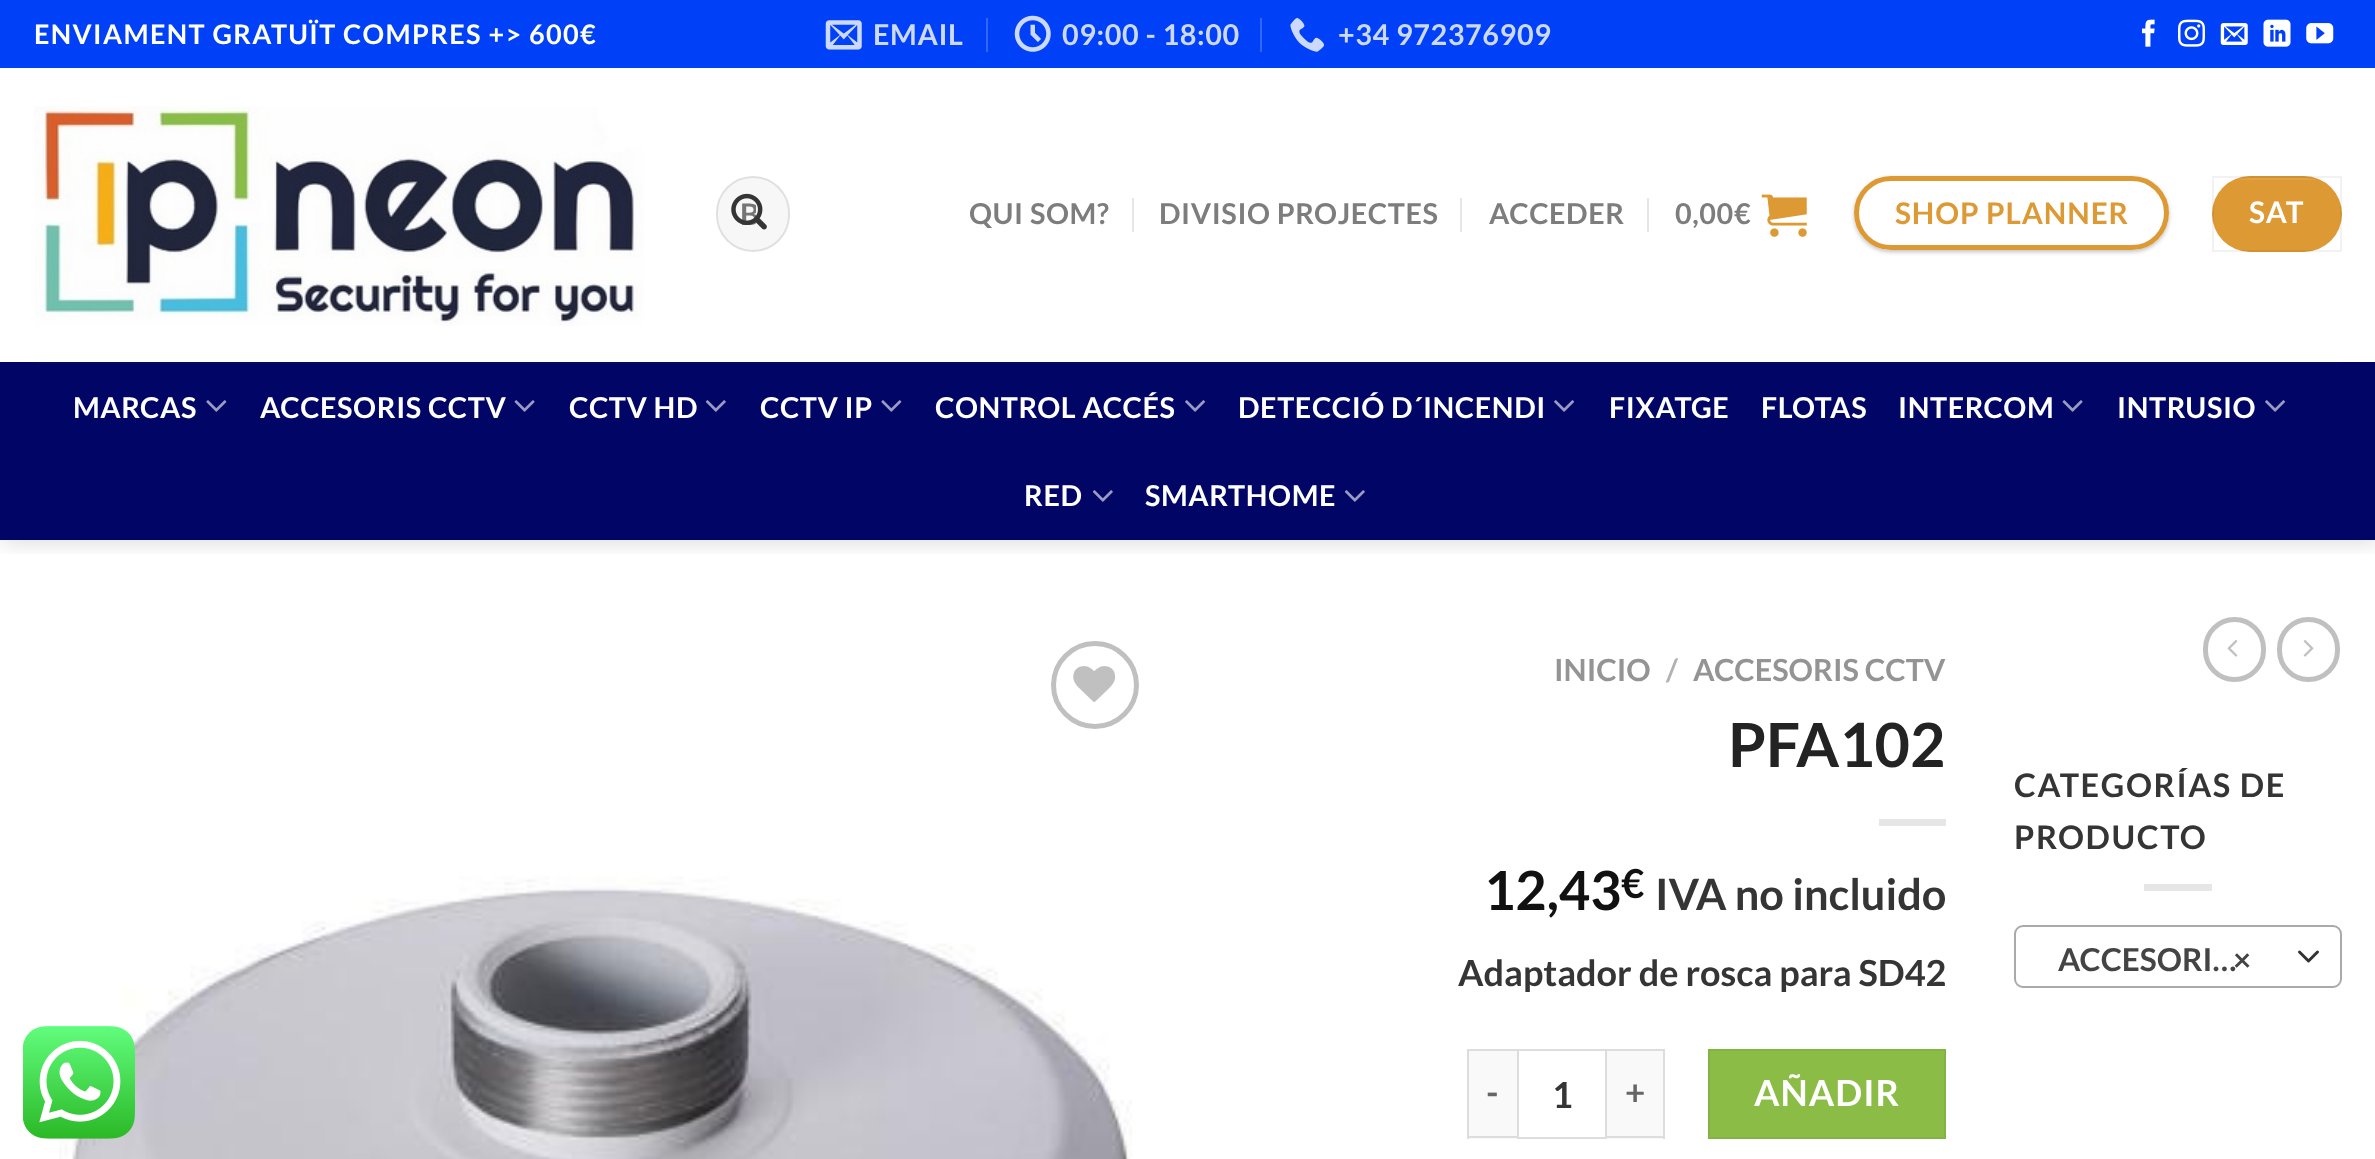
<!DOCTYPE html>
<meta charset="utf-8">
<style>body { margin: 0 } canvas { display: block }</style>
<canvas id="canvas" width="2375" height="1159"></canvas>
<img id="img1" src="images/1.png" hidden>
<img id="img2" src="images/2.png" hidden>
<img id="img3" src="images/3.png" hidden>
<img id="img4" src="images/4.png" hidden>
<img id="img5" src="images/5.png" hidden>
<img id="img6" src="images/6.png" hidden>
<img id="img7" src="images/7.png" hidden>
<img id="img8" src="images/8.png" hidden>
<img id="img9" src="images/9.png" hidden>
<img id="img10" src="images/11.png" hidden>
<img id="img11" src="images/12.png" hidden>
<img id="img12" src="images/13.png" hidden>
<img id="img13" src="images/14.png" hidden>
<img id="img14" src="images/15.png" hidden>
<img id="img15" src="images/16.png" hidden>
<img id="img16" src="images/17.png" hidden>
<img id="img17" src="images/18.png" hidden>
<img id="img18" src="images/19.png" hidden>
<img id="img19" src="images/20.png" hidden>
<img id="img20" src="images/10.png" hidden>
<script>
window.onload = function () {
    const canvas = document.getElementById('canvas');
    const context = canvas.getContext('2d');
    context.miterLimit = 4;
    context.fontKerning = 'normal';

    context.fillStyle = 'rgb(255, 255, 255)';
    context.fillRect(0, 0, 2375, 1159);
    context.save();
    context.beginPath();
    context.rect(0, 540, 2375, 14);
    context.clip();
    context.fillStyle = 'rgba(0, 0, 0, 0.15)';
    context.filter = 'blur(11px)';
    context.beginPath();
    context.rect(2, 2, 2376, 540);
    context.fill();
    context.filter = 'none';
    context.restore();
    context.fillStyle = 'rgb(0, 65, 247)';
    context.fillRect(0, 0, 2375, 68);
    context.drawImage(document.getElementById('img1'), 825, 20, 37, 30);
    context.fillStyle = 'rgb(51, 103, 249)';
    context.fillRect(986, 18, 2, 34);
    context.drawImage(document.getElementById('img2'), 1014, 15, 37, 37);
    context.fillRect(1260, 18, 2, 34);
    context.drawImage(document.getElementById('img3'), 1290, 18, 35, 34);
    context.drawImage(document.getElementById('img4'), 2142, 19, 13, 28);
    context.drawImage(document.getElementById('img5'), 2178, 19, 27, 28);
    context.drawImage(document.getElementById('img6'), 2220, 23, 28, 22);
    context.drawImage(document.getElementById('img7'), 2263, 19, 28, 28);
    context.drawImage(document.getElementById('img8'), 2306, 23, 28, 21);
    context.drawImage(document.getElementById('img9'), 34, 106, 610, 220);
    context.fillStyle = 'rgb(247, 247, 247)';
    context.beginPath();
    context.roundRect(716, 176, 74, 76, 37);
    context.fill();
    context.beginPath();
    context.roundRect(717, 177, 72, 74, 36);
    context.strokeStyle = 'rgba(0, 0, 0, 0.09)';
    context.lineWidth = 2;
    context.stroke();
    context.fillStyle = 'rgb(230, 230, 230)';
    context.fillRect(1132, 198, 2, 34);
    context.fillRect(1460, 198, 2, 34);
    context.fillRect(1647, 198, 2, 34);
    context.drawImage(document.getElementById('img10'), 1761, 194, 46, 43);
    context.save();
    context.beginPath();
    context.moveTo(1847, 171);
    context.lineTo(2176, 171);
    context.lineTo(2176, 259);
    context.lineTo(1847, 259);
    context.closePath();
    context.moveTo(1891, 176);
    context.lineTo(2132, 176);
    context.bezierCurveTo(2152.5, 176, 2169, 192.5, 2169, 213);
    context.bezierCurveTo(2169, 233.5, 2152.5, 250, 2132, 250);
    context.lineTo(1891, 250);
    context.bezierCurveTo(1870.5, 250, 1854, 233.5, 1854, 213);
    context.bezierCurveTo(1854, 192.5, 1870.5, 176, 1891, 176);
    context.closePath();
    context.clip('evenodd');
    context.fillStyle = 'rgba(0, 0, 0, 0.24)';
    context.filter = 'blur(2px)';
    context.beginPath();
    context.roundRect(1854, 178, 315, 74, 37);
    context.fill();
    context.filter = 'none';
    context.restore();
    context.beginPath();
    context.roundRect(1856.5, 178.5, 310, 69, 34.5);
    context.strokeStyle = 'rgb(221, 153, 51)';
    context.lineWidth = 5;
    context.stroke();
    context.fillStyle = 'rgb(221, 153, 51)';
    context.beginPath();
    context.roundRect(2212, 176, 130, 76, 38);
    context.fill();
    context.strokeStyle = 'rgba(0, 0, 0, 0.05)';
    context.lineWidth = 2;
    context.strokeRect(2213, 177, 128, 74);
    context.fillStyle = 'rgba(255, 255, 255, 0.1)';
    context.beginPath();
    context.moveTo(2250, 178);
    context.bezierCurveTo(2246, 178, 2242, 179, 2238, 180);
    context.lineTo(2316, 180);
    context.bezierCurveTo(2312, 179, 2308, 178, 2304, 178);
    context.closePath();
    context.fill();
    context.fillStyle = 'rgb(0, 5, 102)';
    context.fillRect(0, 362, 2375, 178);
    context.fillStyle = 'rgb(5, 10, 97)';
    context.fillRect(34, 362, 2308, 2);
    context.drawImage(document.getElementById('img11'), 206, 400, 21, 12);
    context.drawImage(document.getElementById('img12'), 514, 400, 21, 12);
    context.drawImage(document.getElementById('img13'), 705, 400, 21, 12);
    context.drawImage(document.getElementById('img11'), 881, 400, 21, 12);
    context.drawImage(document.getElementById('img14'), 1185, 400, 20, 12);
    context.drawImage(document.getElementById('img14'), 1554, 400, 20, 12);
    context.drawImage(document.getElementById('img12'), 2062, 400, 21, 12);
    context.drawImage(document.getElementById('img14'), 2265, 400, 20, 12);
    context.drawImage(document.getElementById('img13'), 1092, 490, 21, 12);
    context.drawImage(document.getElementById('img13'), 1344, 490, 21, 12);
    context.beginPath();
    context.arc(1095, 685, 41.5, 0, 2 * Math.PI);
    context.strokeStyle = 'rgb(192, 192, 192)';
    context.lineWidth = 5;
    context.stroke();
    context.drawImage(document.getElementById('img15'), 1073, 666, 43, 36);
    context.drawImage(document.getElementById('img16'), 59, 875, 1074, 284);
    context.fillStyle = 'rgb(230, 230, 230)';
    context.fillRect(1879, 819, 67, 7);
    context.fillStyle = 'rgb(249, 249, 249)';
    context.fillRect(1469, 1051, 48, 88);
    context.fillStyle = 'rgb(221, 221, 221)';
    context.fillRect(1467, 1049, 50, 2);
    context.fillRect(1467, 1136, 50, 2);
    context.fillRect(1467, 1049, 2, 90);
    context.strokeStyle = 'rgb(221, 221, 221)';
    context.lineWidth = 2;
    context.strokeRect(1518, 1050, 88, 88);
    context.fillStyle = 'rgb(249, 249, 249)';
    context.fillRect(1607, 1051, 56, 88);
    context.fillStyle = 'rgb(221, 221, 221)';
    context.fillRect(1607, 1049, 58, 2);
    context.fillRect(1663, 1049, 2, 90);
    context.fillRect(1607, 1136, 58, 2);
    context.fillStyle = 'rgb(138, 188, 70)';
    context.beginPath();
    context.rect(1709, 1050, 236, 88);
    context.fill();
    context.strokeStyle = 'rgb(131, 179, 67)';
    context.stroke();
    context.beginPath();
    context.roundRect(2205.5, 619.5, 58, 60, 29);
    context.strokeStyle = 'rgb(192, 192, 192)';
    context.lineWidth = 5;
    context.stroke();
    context.drawImage(document.getElementById('img17'), 2227, 640, 11, 17);
    context.beginPath();
    context.roundRect(2279.5, 619.5, 58, 60, 29);
    context.stroke();
    context.drawImage(document.getElementById('img18'), 2303, 640, 11, 17);
    context.fillStyle = 'rgb(230, 230, 230)';
    context.fillRect(2144, 884, 68, 7);
    context.beginPath();
    context.moveTo(2299.5, 952);
    context.lineTo(2308.5, 961);
    context.lineTo(2317.5, 952);
    context.strokeStyle = 'rgb(51, 51, 51)';
    context.lineWidth = 3;
    context.lineCap = 'round';
    context.lineJoin = 'round';
    context.stroke();
    context.beginPath();
    context.roundRect(2015, 926, 326, 61, 8);
    context.strokeStyle = 'rgb(170, 170, 170)';
    context.lineWidth = 2;
    context.lineJoin = 'miter';
    context.stroke();
    context.drawImage(document.getElementById('img19'), 23, 1026, 112, 113);
    context.letterSpacing = '1.35px';
    context.font = 'bold 27px Lato';
    context.fillStyle = 'rgb(255, 255, 255)';
    context.fillText('ENVIAMENT GRATUÏT COMPRES +> 600€', 34, 44);
    context.letterSpacing = '0.6px';
    context.font = 'bold 28.75px Lato';
    context.fillStyle = 'rgb(204, 217, 253)';
    context.fillText('EMAIL', 873, 45);
    context.fillText('09:00 - 18:00', 1062, 45);
    context.fillText('+34 972376909', 1338, 45);
    context.save();
    context.beginPath();
    context.rect(740, 196, 16, 36);
    context.clip();
    context.letterSpacing = '0px';
    context.font = 'bold 29.75px Lato';
    context.fillStyle = 'rgb(117, 117, 117)';
    context.fillText('B', 740, 225);
    context.restore();
    context.drawImage(document.getElementById('img20'), 731, 193, 36, 37);
    context.fillStyle = 'rgb(125, 125, 125)';
    context.fillText('QUI SOM?', 969, 224);
    context.fillText('DIVISIO PROJECTES', 1159, 224);
    context.fillText('ACCEDER', 1489, 224);
    context.fillText('0,00€', 1675, 224);
    context.letterSpacing = '0.9px';
    context.font = 'bold 29.75px Lato';
    context.fillStyle = 'rgb(221, 153, 51)';
    context.fillText('SHOP PLANNER', 1895, 224);
    context.fillStyle = 'rgb(255, 255, 255)';
    context.fillText('SAT', 2249, 223);
    context.letterSpacing = '0.6px';
    context.font = 'bold 28.75px Lato';
    context.fillText('MARCAS', 73, 418);
    context.fillText('ACCESORIS CCTV', 260, 418);
    context.fillText('CCTV HD', 569, 418);
    context.fillText('CCTV IP', 760, 418);
    context.fillText('CONTROL ACCÉS', 935, 418);
    context.fillText('DETECCIÓ D´INCENDI', 1238, 418);
    context.fillText('FIXATGE', 1609, 418);
    context.fillText('FLOTAS', 1761, 418);
    context.fillText('INTERCOM', 1898, 418);
    context.fillText('INTRUSIO', 2117, 418);
    context.fillText('RED', 1024, 506);
    context.fillText('SMARTHOME', 1145, 506);
    context.letterSpacing = '0px';
    context.font = 'bold 30.5px Lato';
    context.fillStyle = 'rgb(148, 148, 148)';
    context.fillText('INICIO', 1554, 681);
    context.fillStyle = 'rgb(178, 178, 178)';
    context.fillText('/', 1666, 681);
    context.fillStyle = 'rgb(148, 148, 148)';
    context.fillText('ACCESORIS CCTV', 1693, 681);
    context.font = 'bold 61px Lato';
    context.fillStyle = 'rgb(35, 35, 35)';
    context.fillText('PFA102', 1728, 767);
    context.font = 'bold 54px Lato';
    context.fillStyle = 'rgb(17, 17, 17)';
    context.fillText('12,43', 1484, 910);
    context.font = 'bold 40px Lato';
    context.fillText('€', 1621, 898);
    context.font = 'bold 43.25px Lato';
    context.fillStyle = 'rgb(53, 53, 53)';
    context.fillText('IVA no incluido', 1655, 910);
    context.font = 'bold 36px Lato';
    context.fillText('Adaptador de rosca para SD42', 1458, 986);
    context.letterSpacing = '1px';
    context.font = 'bold 35px Lato';
    context.fillStyle = 'rgb(102, 102, 102)';
    context.fillText('-', 1486, 1105);
    context.letterSpacing = '0px';
    context.font = 'bold 36px Lato';
    context.fillStyle = 'rgb(53, 53, 53)';
    context.fillText('1', 1552, 1108);
    context.letterSpacing = '1px';
    context.font = 'bold 35px Lato';
    context.fillStyle = 'rgb(102, 102, 102)';
    context.fillText('+', 1625, 1105);
    context.font = 'bold 36px Lato';
    context.fillStyle = 'rgb(255, 255, 255)';
    context.fillText('AÑADIR', 1754, 1106);
    context.letterSpacing = '1.6px';
    context.font = 'bold 32.5px Lato';
    context.fillStyle = 'rgb(53, 53, 53)';
    context.fillText('CATEGORÍAS DE', 2014, 797);
    context.fillText('PRODUCTO', 2014, 849);
    context.letterSpacing = '0px';
    context.font = 'bold 31.5px Lato';
    context.fillStyle = 'rgb(68, 68, 68)';
    context.fillText('ACCESORI…', 2058, 971);
    context.fillText('×', 2233, 971);
};
</script>
